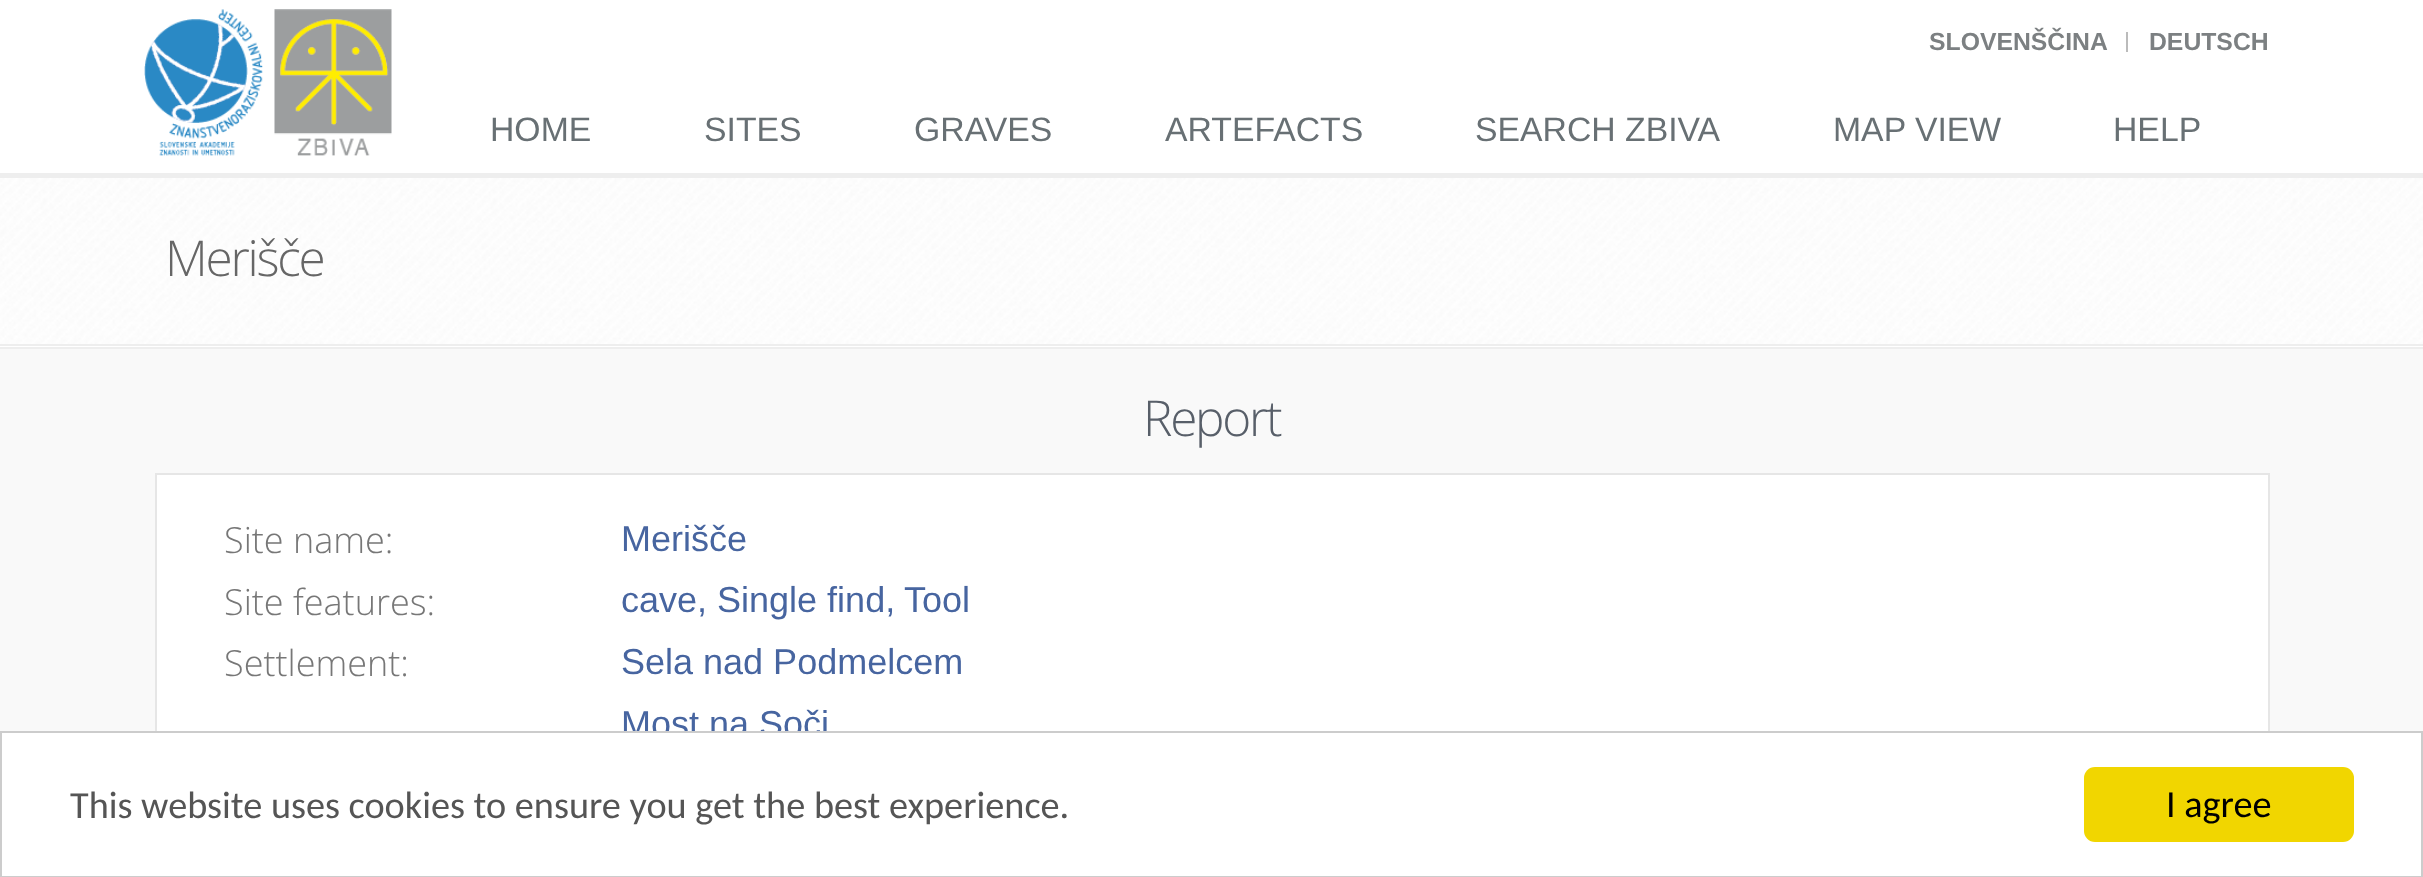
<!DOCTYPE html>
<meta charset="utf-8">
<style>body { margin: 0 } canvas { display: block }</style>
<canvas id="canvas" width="2423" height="877"></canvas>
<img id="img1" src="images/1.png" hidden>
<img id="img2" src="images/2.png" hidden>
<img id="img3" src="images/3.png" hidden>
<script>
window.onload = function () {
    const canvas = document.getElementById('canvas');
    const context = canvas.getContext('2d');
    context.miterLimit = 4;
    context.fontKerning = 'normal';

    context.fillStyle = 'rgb(255, 255, 255)';
    context.fillRect(0, 0, 2423, 877);
    context.fillStyle = 'rgb(238, 238, 238)';
    context.fillRect(0, 173, 2423, 5);
    context.fillStyle = 'rgb(187, 187, 187)';
    context.fillRect(2126, 32, 2, 20);
    context.drawImage(document.getElementById('img1'), 144, 9, 119, 147);
    context.drawImage(document.getElementById('img2'), 274, 9, 118, 147);
    context.drawImage(document.getElementById('img3'), 0, 178, 2423, 166);
    context.fillStyle = 'rgb(238, 238, 238)';
    context.fillRect(0, 344, 2423, 2);
    context.fillStyle = 'rgb(249, 249, 249)';
    context.fillRect(0, 349, 2423, 382);
    context.fillStyle = 'rgb(238, 238, 238)';
    context.fillRect(0, 347, 2423, 2);
    context.fillStyle = 'rgb(255, 255, 255)';
    context.fillRect(157, 475, 2111, 256);
    context.strokeStyle = 'rgb(230, 230, 230)';
    context.lineWidth = 2;
    context.strokeRect(156, 474, 2113, 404);
    context.font = 'bold 24.75px Liberation Sans';
    context.fillStyle = 'rgb(124, 128, 130)';
    context.fillText('SLOVENŠČINA', 1929, 50);
    context.fillText('DEUTSCH', 2149, 50);
    context.font = '33.75px Liberation Sans';
    context.fillStyle = 'rgb(104, 112, 116)';
    context.fillText('HOME', 490, 141);
    context.fillText('SITES', 704, 141);
    context.fillText('GRAVES', 914, 141);
    context.fillText('ARTEFACTS', 1165, 141);
    context.fillText('SEARCH ZBIVA', 1475, 141);
    context.fillText('MAP VIEW', 1833, 141);
    context.fillText('HELP', 2113, 141);
    context.letterSpacing = '-2.25px';
    context.font = '300 49.5px Open Sans';
    context.fillStyle = 'rgb(102, 102, 102)';
    context.fillText('Merišče', 165, 276);
    context.fillStyle = 'rgb(88, 95, 105)';
    context.fillText('Report', 1143, 436);
    context.letterSpacing = '0px';
    context.font = '300 36px Open Sans';
    context.fillStyle = 'rgb(119, 119, 119)';
    context.fillText('Site name:', 224, 553);
    context.font = '36px Liberation Sans';
    context.fillStyle = 'rgb(71, 101, 160)';
    context.fillText('Merišče', 621, 551);
    context.font = '300 36px Open Sans';
    context.fillStyle = 'rgb(119, 119, 119)';
    context.fillText('Site features:', 224, 615);
    context.font = '36px Liberation Sans';
    context.fillStyle = 'rgb(71, 101, 160)';
    context.fillText('cave, Single find,', 621, 612);
    context.fillText('Tool', 904, 612);
    context.font = '300 36px Open Sans';
    context.fillStyle = 'rgb(119, 119, 119)';
    context.fillText('Settlement:', 224, 676);
    context.font = '36px Liberation Sans';
    context.fillStyle = 'rgb(71, 101, 160)';
    context.fillText('Sela nad Podmelcem', 621, 674);
    context.fillText('Most na Soči', 621, 736);
    context.fillStyle = 'rgb(255, 255, 255)';
    context.fillRect(155, 733, 2115, 143);
    context.strokeStyle = 'rgb(204, 204, 204)';
    context.strokeRect(1, 732, 2421, 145);
    context.font = '38.25px Carlito';
    context.fillStyle = 'rgb(85, 85, 85)';
    context.fillText('This website uses cookies to ensure you get the best experience.', 70, 818);
    context.fillStyle = 'rgb(241, 214, 0)';
    context.beginPath();
    context.roundRect(2084, 767, 270, 75, 11);
    context.fill();
    context.fillStyle = 'rgb(0, 0, 0)';
    context.fillText('I agree', 2166, 817);
};
</script>
